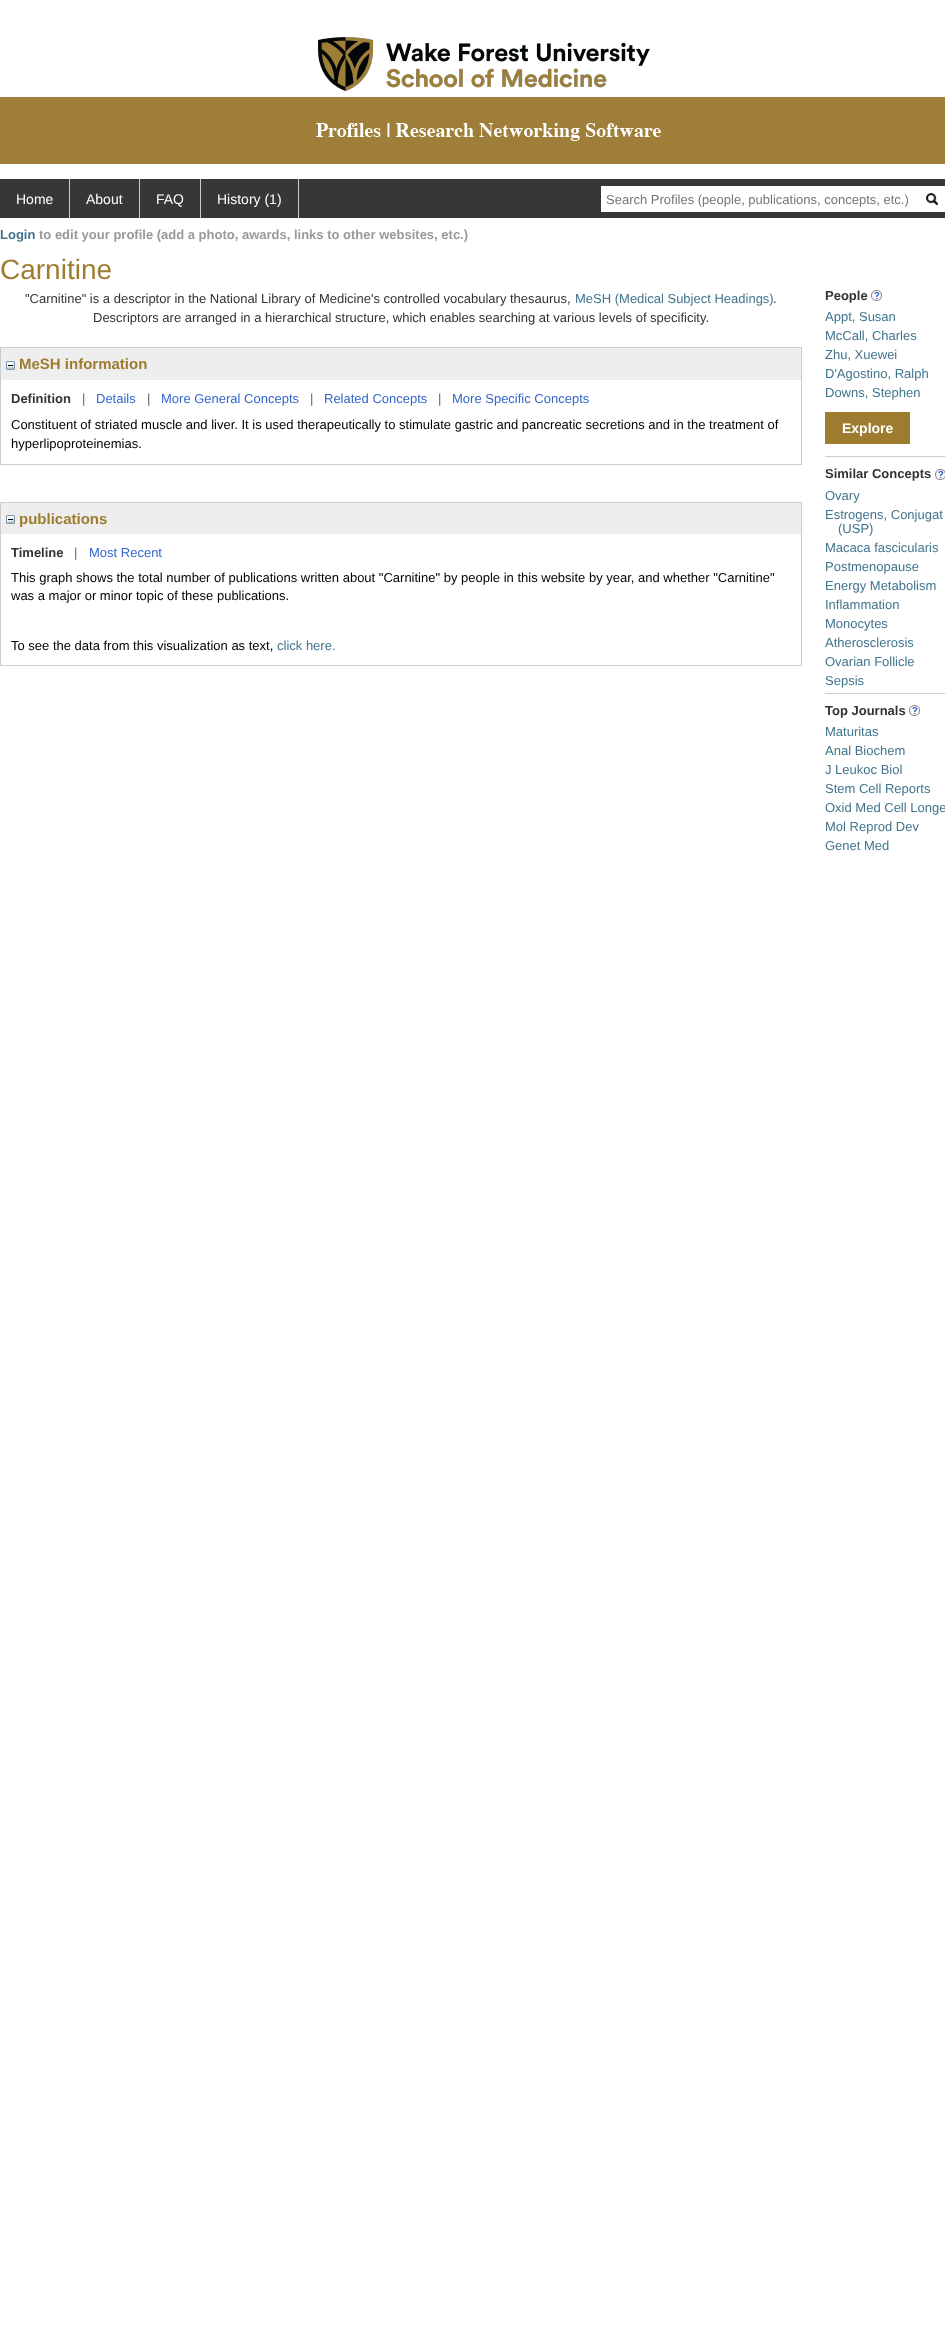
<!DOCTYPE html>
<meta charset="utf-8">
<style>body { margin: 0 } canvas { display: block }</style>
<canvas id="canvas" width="945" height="2334"></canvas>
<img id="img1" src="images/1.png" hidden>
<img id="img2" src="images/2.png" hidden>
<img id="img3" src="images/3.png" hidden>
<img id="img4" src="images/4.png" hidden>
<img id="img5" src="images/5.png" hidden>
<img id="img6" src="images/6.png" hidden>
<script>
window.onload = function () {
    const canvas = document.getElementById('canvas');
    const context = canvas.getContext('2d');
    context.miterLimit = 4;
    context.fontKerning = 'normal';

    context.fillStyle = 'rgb(255, 255, 255)';
    context.fillRect(0, 0, 945, 2334);
    context.drawImage(document.getElementById('img1'), 318, 37, 332, 54);
    context.drawImage(document.getElementById('img2'), 0, 97, 945, 67);
    context.fillStyle = 'rgb(56, 55, 55)';
    context.fillRect(0, 179, 945, 39);
    context.fillStyle = 'rgb(204, 204, 204)';
    context.fillRect(69, 179, 1, 39);
    context.fillRect(139, 179, 1, 39);
    context.fillRect(200, 179, 1, 39);
    context.fillRect(298, 179, 1, 39);
    context.fillStyle = 'rgb(255, 255, 255)';
    context.fillRect(601, 186, 344, 26);
    context.drawImage(document.getElementById('img3'), 926, 193, 12, 12);
    context.strokeStyle = 'rgb(204, 204, 204)';
    context.strokeRect(0.5, 347.5, 801, 117);
    context.fillStyle = 'rgb(238, 238, 238)';
    context.fillRect(1, 348, 800, 32);
    context.drawImage(document.getElementById('img4'), 6, 361, 9, 9);
    context.strokeRect(0.5, 502.5, 801, 163);
    context.fillRect(1, 503, 800, 31);
    context.drawImage(document.getElementById('img4'), 6, 515, 9, 9);
    context.drawImage(document.getElementById('img5'), 871, 290, 11, 11);
    context.fillStyle = 'rgb(157, 124, 47)';
    context.fillRect(825, 412, 85, 32);
    context.fillStyle = 'rgb(204, 204, 204)';
    context.fillRect(825, 456, 120, 1);
    context.drawImage(document.getElementById('img6'), 935, 469, 10, 11);
    context.fillRect(825, 693, 120, 1);
    context.drawImage(document.getElementById('img5'), 909, 705, 11, 11);
    context.font = '14px Liberation Sans';
    context.fillStyle = 'rgb(255, 255, 255)';
    context.fillText('Home', 16, 204);
    context.fillText('About', 86, 204);
    context.fillText('FAQ', 156, 204);
    context.fillText('History (1)', 217, 204);
    context.font = '13px Liberation Sans';
    context.fillStyle = 'rgb(117, 117, 117)';
    context.fillText('Search Profiles (people, publications, concepts, etc.)', 606, 204);
    context.font = 'bold 13px Liberation Sans';
    context.fillStyle = 'rgb(65, 116, 141)';
    context.fillText('Login', 0, 239);
    context.fillStyle = 'rgb(153, 153, 153)';
    context.fillText('to edit your profile (add a photo, awards, links to other websites, etc.)', 39, 239);
    context.font = '28px Liberation Sans';
    context.fillStyle = 'rgb(157, 124, 47)';
    context.fillText('Carnitine', 0, 279);
    context.font = '13px Liberation Sans';
    context.fillStyle = 'rgb(51, 51, 51)';
    context.fillText('"Carnitine" is a descriptor in the National Library of Medicine\'s controlled vocabulary thesaurus,', 25, 303);
    context.fillStyle = 'rgb(65, 116, 141)';
    context.fillText('MeSH (Medical Subject Headings)', 575, 303);
    context.fillStyle = 'rgb(51, 51, 51)';
    context.fillText('.', 773, 303);
    context.fillText('Descriptors are arranged in a hierarchical structure, which enables searching at various levels of specificity.', 93, 322);
    context.font = 'bold 15px Liberation Sans';
    context.fillStyle = 'rgb(157, 124, 47)';
    context.fillText('MeSH information', 19, 369);
    context.font = 'bold 13px Liberation Sans';
    context.fillStyle = 'rgb(51, 51, 51)';
    context.fillText('Definition', 11, 403);
    context.font = '13px Liberation Sans';
    context.fillStyle = 'rgb(102, 102, 102)';
    context.fillText('|', 82, 403);
    context.fillStyle = 'rgb(51, 102, 204)';
    context.fillText('Details', 96, 403);
    context.fillStyle = 'rgb(102, 102, 102)';
    context.fillText('|', 147, 403);
    context.fillStyle = 'rgb(51, 102, 204)';
    context.fillText('More General Concepts', 161, 403);
    context.fillStyle = 'rgb(102, 102, 102)';
    context.fillText('|', 310, 403);
    context.fillStyle = 'rgb(51, 102, 204)';
    context.fillText('Related Concepts', 324, 403);
    context.fillStyle = 'rgb(102, 102, 102)';
    context.fillText('|', 438, 403);
    context.fillStyle = 'rgb(51, 102, 204)';
    context.fillText('More Specific Concepts', 452, 403);
    context.fillStyle = 'rgb(0, 0, 0)';
    context.fillText('Constituent of striated muscle and liver. It is used therapeutically to stimulate gastric and pancreatic secretions and in the treatment of', 11, 429);
    context.fillText('hyperlipoproteinemias.', 11, 448);
    context.font = 'bold 15px Liberation Sans';
    context.fillStyle = 'rgb(157, 124, 47)';
    context.fillText('publications', 19, 524);
    context.font = 'bold 13px Liberation Sans';
    context.fillStyle = 'rgb(51, 51, 51)';
    context.fillText('Timeline', 11, 557);
    context.font = '13px Liberation Sans';
    context.fillStyle = 'rgb(102, 102, 102)';
    context.fillText('|', 74, 557);
    context.fillStyle = 'rgb(51, 102, 204)';
    context.fillText('Most Recent', 89, 557);
    context.fillStyle = 'rgb(0, 0, 0)';
    context.fillText('This graph shows the total number of publications written about "Carnitine" by people in this website by year, and whether "Carnitine"', 11, 582);
    context.fillText('was a major or minor topic of these publications.', 11, 600);
    context.fillText('To see the data from this visualization as text,', 11, 650);
    context.fillStyle = 'rgb(65, 116, 141)';
    context.fillText('click here.', 277, 650);
    context.font = 'bold 13px Liberation Sans';
    context.fillStyle = 'rgb(51, 51, 51)';
    context.fillText('People', 825, 300);
    context.font = '13px Liberation Sans';
    context.fillStyle = 'rgb(65, 116, 141)';
    context.fillText('Appt, Susan', 825, 321);
    context.fillText('McCall, Charles', 825, 340);
    context.fillText('Zhu, Xuewei', 825, 359);
    context.fillText('D\'Agostino, Ralph', 825, 378);
    context.fillText('Downs, Stephen', 825, 397);
    context.font = 'bold 14px Liberation Sans';
    context.fillStyle = 'rgb(255, 255, 255)';
    context.fillText('Explore', 842, 433);
    context.font = 'bold 13px Liberation Sans';
    context.fillStyle = 'rgb(51, 51, 51)';
    context.fillText('Similar Concepts', 825, 478);
    context.font = '13px Liberation Sans';
    context.fillStyle = 'rgb(65, 116, 141)';
    context.fillText('Ovary', 825, 500);
    context.fillText('Estrogens, Conjugat', 825, 519);
    context.fillText('(USP)', 838, 533);
    context.fillText('Macaca fascicularis', 825, 552);
    context.fillText('Postmenopause', 825, 571);
    context.fillText('Energy Metabolism', 825, 590);
    context.fillText('Inflammation', 825, 609);
    context.fillText('Monocytes', 825, 628);
    context.fillText('Atherosclerosis', 825, 647);
    context.fillText('Ovarian Follicle', 825, 666);
    context.fillText('Sepsis', 825, 685);
    context.font = 'bold 13px Liberation Sans';
    context.fillStyle = 'rgb(51, 51, 51)';
    context.fillText('Top Journals', 825, 715);
    context.font = '13px Liberation Sans';
    context.fillStyle = 'rgb(65, 116, 141)';
    context.fillText('Maturitas', 825, 736);
    context.fillText('Anal Biochem', 825, 755);
    context.fillText('J Leukoc Biol', 825, 774);
    context.fillText('Stem Cell Reports', 825, 793);
    context.fillText('Oxid Med Cell Longe', 825, 812);
    context.fillText('Mol Reprod Dev', 825, 831);
    context.fillText('Genet Med', 825, 850);
};
</script>
